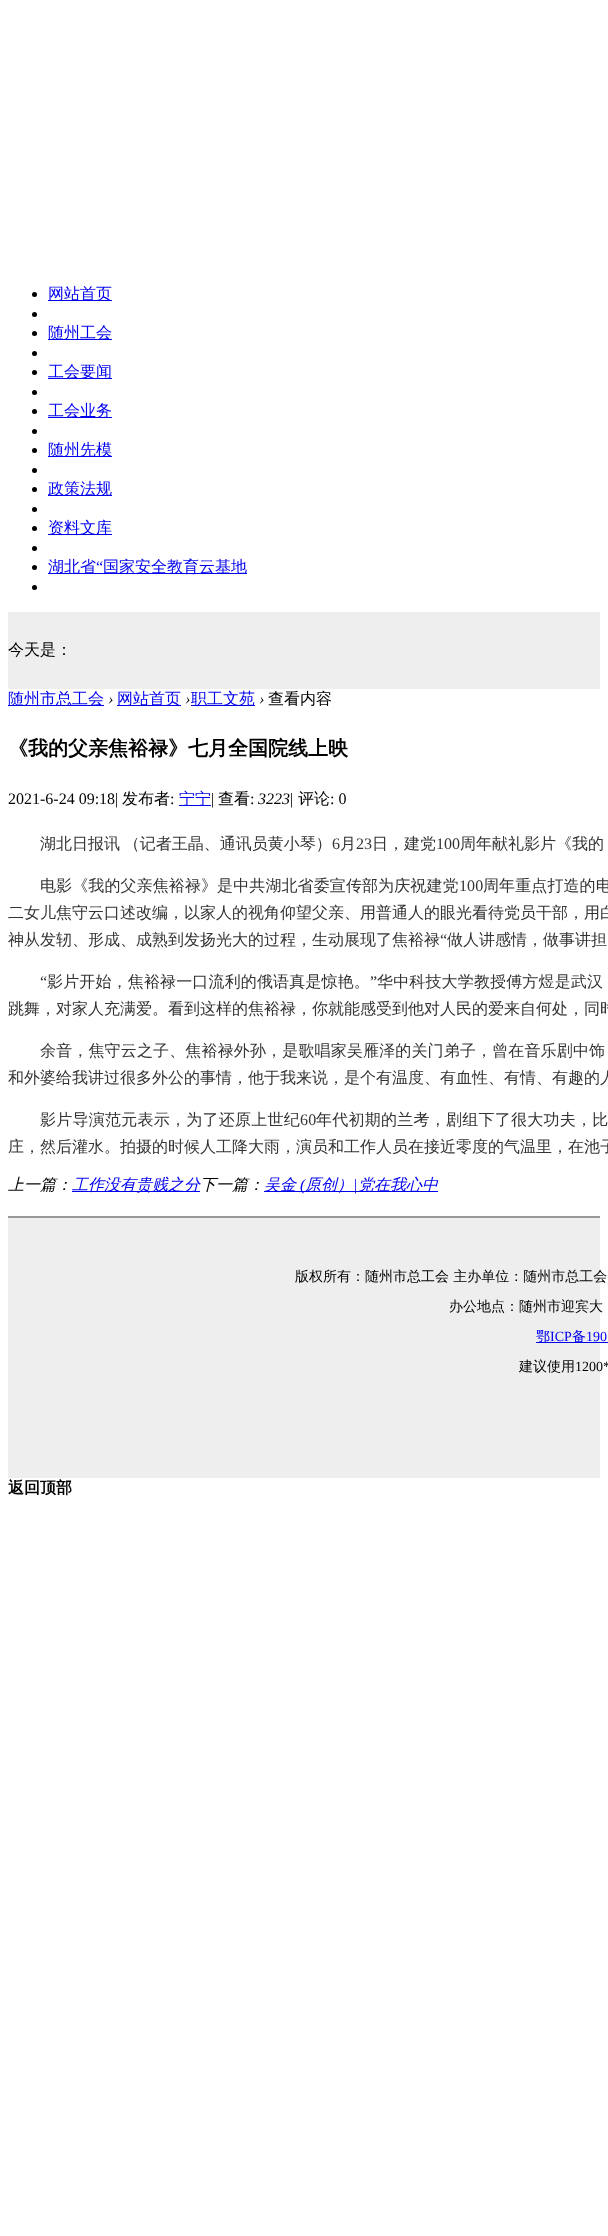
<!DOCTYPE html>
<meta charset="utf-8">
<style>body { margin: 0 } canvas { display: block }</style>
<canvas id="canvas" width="608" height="2236"></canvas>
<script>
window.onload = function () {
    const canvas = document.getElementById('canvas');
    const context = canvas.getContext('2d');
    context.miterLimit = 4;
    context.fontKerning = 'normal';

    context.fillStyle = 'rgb(255, 255, 255)';
    context.fillRect(0, 0, 608, 2236);
    context.fillStyle = 'rgb(0, 0, 0)';
    context.beginPath();
    context.arc(34.5, 294.5, 2.5, 0, 2 * Math.PI);
    context.fill();
    context.fillStyle = 'rgb(0, 0, 238)';
    context.fillRect(48, 300, 64, 1);
    context.fillStyle = 'rgb(0, 0, 0)';
    context.beginPath();
    context.arc(34.5, 314.5, 2.5, 0, 2 * Math.PI);
    context.fill();
    context.beginPath();
    context.arc(34.5, 333.5, 2.5, 0, 2 * Math.PI);
    context.fill();
    context.fillStyle = 'rgb(0, 0, 238)';
    context.fillRect(48, 339, 64, 1);
    context.fillStyle = 'rgb(0, 0, 0)';
    context.beginPath();
    context.arc(34.5, 353.5, 2.5, 0, 2 * Math.PI);
    context.fill();
    context.beginPath();
    context.arc(34.5, 372.5, 2.5, 0, 2 * Math.PI);
    context.fill();
    context.fillStyle = 'rgb(0, 0, 238)';
    context.fillRect(48, 378, 64, 1);
    context.fillStyle = 'rgb(0, 0, 0)';
    context.beginPath();
    context.arc(34.5, 392.5, 2.5, 0, 2 * Math.PI);
    context.fill();
    context.beginPath();
    context.arc(34.5, 411.5, 2.5, 0, 2 * Math.PI);
    context.fill();
    context.fillStyle = 'rgb(0, 0, 238)';
    context.fillRect(48, 417, 64, 1);
    context.fillStyle = 'rgb(0, 0, 0)';
    context.beginPath();
    context.arc(34.5, 431.5, 2.5, 0, 2 * Math.PI);
    context.fill();
    context.beginPath();
    context.arc(34.5, 450.5, 2.5, 0, 2 * Math.PI);
    context.fill();
    context.fillStyle = 'rgb(0, 0, 238)';
    context.fillRect(48, 456, 64, 1);
    context.fillStyle = 'rgb(0, 0, 0)';
    context.beginPath();
    context.arc(34.5, 470.5, 2.5, 0, 2 * Math.PI);
    context.fill();
    context.beginPath();
    context.arc(34.5, 489.5, 2.5, 0, 2 * Math.PI);
    context.fill();
    context.fillStyle = 'rgb(0, 0, 238)';
    context.fillRect(48, 495, 64, 1);
    context.fillStyle = 'rgb(0, 0, 0)';
    context.beginPath();
    context.arc(34.5, 509.5, 2.5, 0, 2 * Math.PI);
    context.fill();
    context.beginPath();
    context.arc(34.5, 528.5, 2.5, 0, 2 * Math.PI);
    context.fill();
    context.fillStyle = 'rgb(0, 0, 238)';
    context.fillRect(48, 534, 64, 1);
    context.fillStyle = 'rgb(0, 0, 0)';
    context.beginPath();
    context.arc(34.5, 548.5, 2.5, 0, 2 * Math.PI);
    context.fill();
    context.fillStyle = 'rgb(0, 0, 238)';
    context.fillRect(48, 573, 199, 1);
    context.fillStyle = 'rgb(0, 0, 0)';
    context.beginPath();
    context.arc(34.5, 567.5, 2.5, 0, 2 * Math.PI);
    context.fill();
    context.beginPath();
    context.arc(34.5, 587.5, 2.5, 0, 2 * Math.PI);
    context.fill();
    context.fillStyle = 'rgb(238, 238, 238)';
    context.fillRect(8, 612, 592, 77);
    context.fillStyle = 'rgb(0, 0, 238)';
    context.fillRect(8, 705, 96, 1);
    context.fillRect(117, 705, 64, 1);
    context.fillRect(191, 705, 64, 1);
    context.fillRect(179, 805, 32, 1);
    context.fillRect(72, 1191, 128, 1);
    context.fillRect(264, 1191, 174, 1);
    context.fillStyle = 'rgb(238, 238, 238)';
    context.fillRect(8, 1218, 592, 260);
    context.fillStyle = 'rgb(153, 153, 153)';
    context.fillRect(8, 1216, 592, 2);
    context.fillStyle = 'rgb(0, 0, 238)';
    context.fillRect(536, 1342, 72, 1);
    context.font = '500 16px WenQuanYi Zen Hei';
    context.fillText('网站首页', 48, 299);
    context.fillText('随州工会', 48, 338);
    context.fillText('工会要闻', 48, 377);
    context.fillText('工会业务', 48, 416);
    context.fillText('随州先模', 48, 455);
    context.fillText('政策法规', 48, 494);
    context.fillText('资料文库', 48, 533);
    context.fillText('湖北省', 48, 572);
    context.font = '16px Liberation Serif';
    context.fillText('“', 96, 572);
    context.font = '500 16px WenQuanYi Zen Hei';
    context.fillText('国家安全教育云基地', 103, 572);
    context.fillStyle = 'rgb(0, 0, 0)';
    context.fillText('今天是：', 8, 655);
    context.fillStyle = 'rgb(0, 0, 238)';
    context.fillText('随州市总工会', 8, 704);
    context.font = 'italic 16px Liberation Serif';
    context.fillStyle = 'rgb(0, 0, 0)';
    context.fillText('›', 108, 704);
    context.font = '500 16px WenQuanYi Zen Hei';
    context.fillStyle = 'rgb(0, 0, 238)';
    context.fillText('网站首页', 117, 704);
    context.font = 'italic 16px Liberation Serif';
    context.fillStyle = 'rgb(0, 0, 0)';
    context.fillText('›', 185, 704);
    context.font = '500 16px WenQuanYi Zen Hei';
    context.fillStyle = 'rgb(0, 0, 238)';
    context.fillText('职工文苑', 191, 704);
    context.font = 'italic 16px Liberation Serif';
    context.fillStyle = 'rgb(0, 0, 0)';
    context.fillText('›', 259, 704);
    context.font = '500 16px WenQuanYi Zen Hei';
    context.fillText('查看内容', 268, 704);
    context.font = 'bold 20px WenQuanYi Zen Hei';
    context.fillText('《我的父亲焦裕禄》七月全国院线上映', 8, 755);
    context.font = '16px Liberation Serif';
    context.fillText('2021-6-24 09:18|', 8, 804);
    context.font = '500 16px WenQuanYi Zen Hei';
    context.fillText('发布者', 122, 804);
    context.font = '16px Liberation Serif';
    context.fillText(':', 170, 804);
    context.font = '500 16px WenQuanYi Zen Hei';
    context.fillStyle = 'rgb(0, 0, 238)';
    context.fillText('宁宁', 179, 804);
    context.font = '16px Liberation Serif';
    context.fillStyle = 'rgb(0, 0, 0)';
    context.fillText('|', 211, 804);
    context.font = '500 16px WenQuanYi Zen Hei';
    context.fillText('查看', 218, 804);
    context.font = '16px Liberation Serif';
    context.fillText(':', 250, 804);
    context.font = 'italic 16px Liberation Serif';
    context.fillText('3223', 258, 804);
    context.font = '16px Liberation Serif';
    context.fillText('|', 290, 804);
    context.font = '500 16px WenQuanYi Zen Hei';
    context.fillText('评论', 298, 804);
    context.font = '16px Liberation Serif';
    context.fillText(': 0', 330, 804);
    context.wordSpacing = '-1px';
    context.font = '500 16px WenQuanYi Zen Hei';
    context.fillStyle = 'rgb(51, 51, 51)';
    context.fillText('湖北日报讯 （记者王晶、通讯员黄小琴）', 40, 849);
    context.wordSpacing = '0px';
    context.font = '16px Liberation Serif';
    context.fillText('6', 332, 849);
    context.font = '500 16px WenQuanYi Zen Hei';
    context.fillText('月', 340, 849);
    context.font = '16px Liberation Serif';
    context.fillText('23', 356, 849);
    context.font = '500 16px WenQuanYi Zen Hei';
    context.fillText('日，建党', 372, 849);
    context.font = '16px Liberation Serif';
    context.fillText('100', 436, 849);
    context.font = '500 16px WenQuanYi Zen Hei';
    context.fillText('周年献礼影片《我的', 460, 849);
    context.letterSpacing = '0.1px';
    context.fillText('电影《我的父亲焦裕禄》是中共湖北省委宣传部为庆祝建党', 40, 891);
    context.font = '16px Liberation Serif';
    context.fillText('100', 459, 891);
    context.font = '500 16px WenQuanYi Zen Hei';
    context.fillText('周年重点打造的电', 483, 891);
    context.letterSpacing = '0px';
    context.fillText('二女儿焦守云口述改编，以家人的视角仰望父亲、用普通人的眼光看待党员干部，用白', 8, 918);
    context.fillText('神从发轫、形成、成熟到发扬光大的过程，生动展现了焦裕禄', 8, 945);
    context.font = '16px Liberation Serif';
    context.fillText('“', 440, 945);
    context.font = '500 16px WenQuanYi Zen Hei';
    context.fillText('做人讲感情，做事讲担', 447, 945);
    context.letterSpacing = '0.15px';
    context.font = '16px Liberation Serif';
    context.fillText('“', 40, 987);
    context.font = '500 16px WenQuanYi Zen Hei';
    context.fillText('影片开始，焦裕禄一口流利的俄语真是惊艳。', 47, 987);
    context.font = '16px Liberation Serif';
    context.fillText('”', 370, 987);
    context.font = '500 16px WenQuanYi Zen Hei';
    context.fillText('华中科技大学教授傅方煜是武汉', 377, 987);
    context.letterSpacing = '0px';
    context.fillText('跳舞，对家人充满爱。看到这样的焦裕禄，你就能感受到他对人民的爱来自何处，同时', 8, 1014);
    context.letterSpacing = '0.15px';
    context.fillText('余音，焦守云之子、焦裕禄外孙，是歌唱家吴雁泽的关门弟子，曾在音乐剧中饰', 40, 1056);
    context.letterSpacing = '0px';
    context.fillText('和外婆给我讲过很多外公的事情，他于我来说，是个有温度、有血性、有情、有趣的人', 8, 1083);
    context.letterSpacing = '0.25px';
    context.fillText('影片导演范元表示，为了还原上世纪', 40, 1125);
    context.font = '16px Liberation Serif';
    context.fillText('60', 300, 1125);
    context.font = '500 16px WenQuanYi Zen Hei';
    context.fillText('年代初期的兰考，剧组下了很大功夫，比', 316, 1125);
    context.letterSpacing = '0px';
    context.fillText('庄，然后灌水。拍摄的时候人工降大雨，演员和工作人员在接近零度的气温里，在池子', 8, 1152);
    context.font = 'italic 500 16px WenQuanYi Zen Hei';
    context.fillStyle = 'rgb(0, 0, 0)';
    context.fillText('上一篇：', 8, 1190);
    context.fillStyle = 'rgb(0, 0, 238)';
    context.fillText('工作没有贵贱之分', 72, 1190);
    context.fillStyle = 'rgb(0, 0, 0)';
    context.fillText('下一篇：', 200, 1190);
    context.fillStyle = 'rgb(0, 0, 238)';
    context.fillText('吴金', 264, 1190);
    context.font = 'italic 16px Liberation Serif';
    context.fillText('(', 300, 1190);
    context.font = 'italic 500 16px WenQuanYi Zen Hei';
    context.fillText('原创）', 305, 1190);
    context.font = 'italic 16px Liberation Serif';
    context.fillText('|', 353, 1190);
    context.font = 'italic 500 16px WenQuanYi Zen Hei';
    context.fillText('党在我心中', 358, 1190);
    context.font = '500 14px WenQuanYi Zen Hei';
    context.fillStyle = 'rgb(0, 0, 0)';
    context.fillText('版权所有：随州市总工会 主办单位：随州市总工会', 295, 1281);
    context.fillText('办公地点：随州市迎宾大', 449, 1311);
    context.fillStyle = 'rgb(0, 0, 238)';
    context.fillText('鄂', 536, 1341);
    context.font = '14px Liberation Serif';
    context.fillText('ICP', 550, 1341);
    context.font = '500 14px WenQuanYi Zen Hei';
    context.fillText('备', 572, 1341);
    context.font = '14px Liberation Serif';
    context.fillText('190', 586, 1341);
    context.font = '500 14px WenQuanYi Zen Hei';
    context.fillStyle = 'rgb(0, 0, 0)';
    context.fillText('建议使用', 519, 1371);
    context.font = '14px Liberation Serif';
    context.fillText('1200*', 575, 1371);
    context.font = 'bold 16px WenQuanYi Zen Hei';
    context.fillText('返回顶部', 8, 1493);
};
</script>
